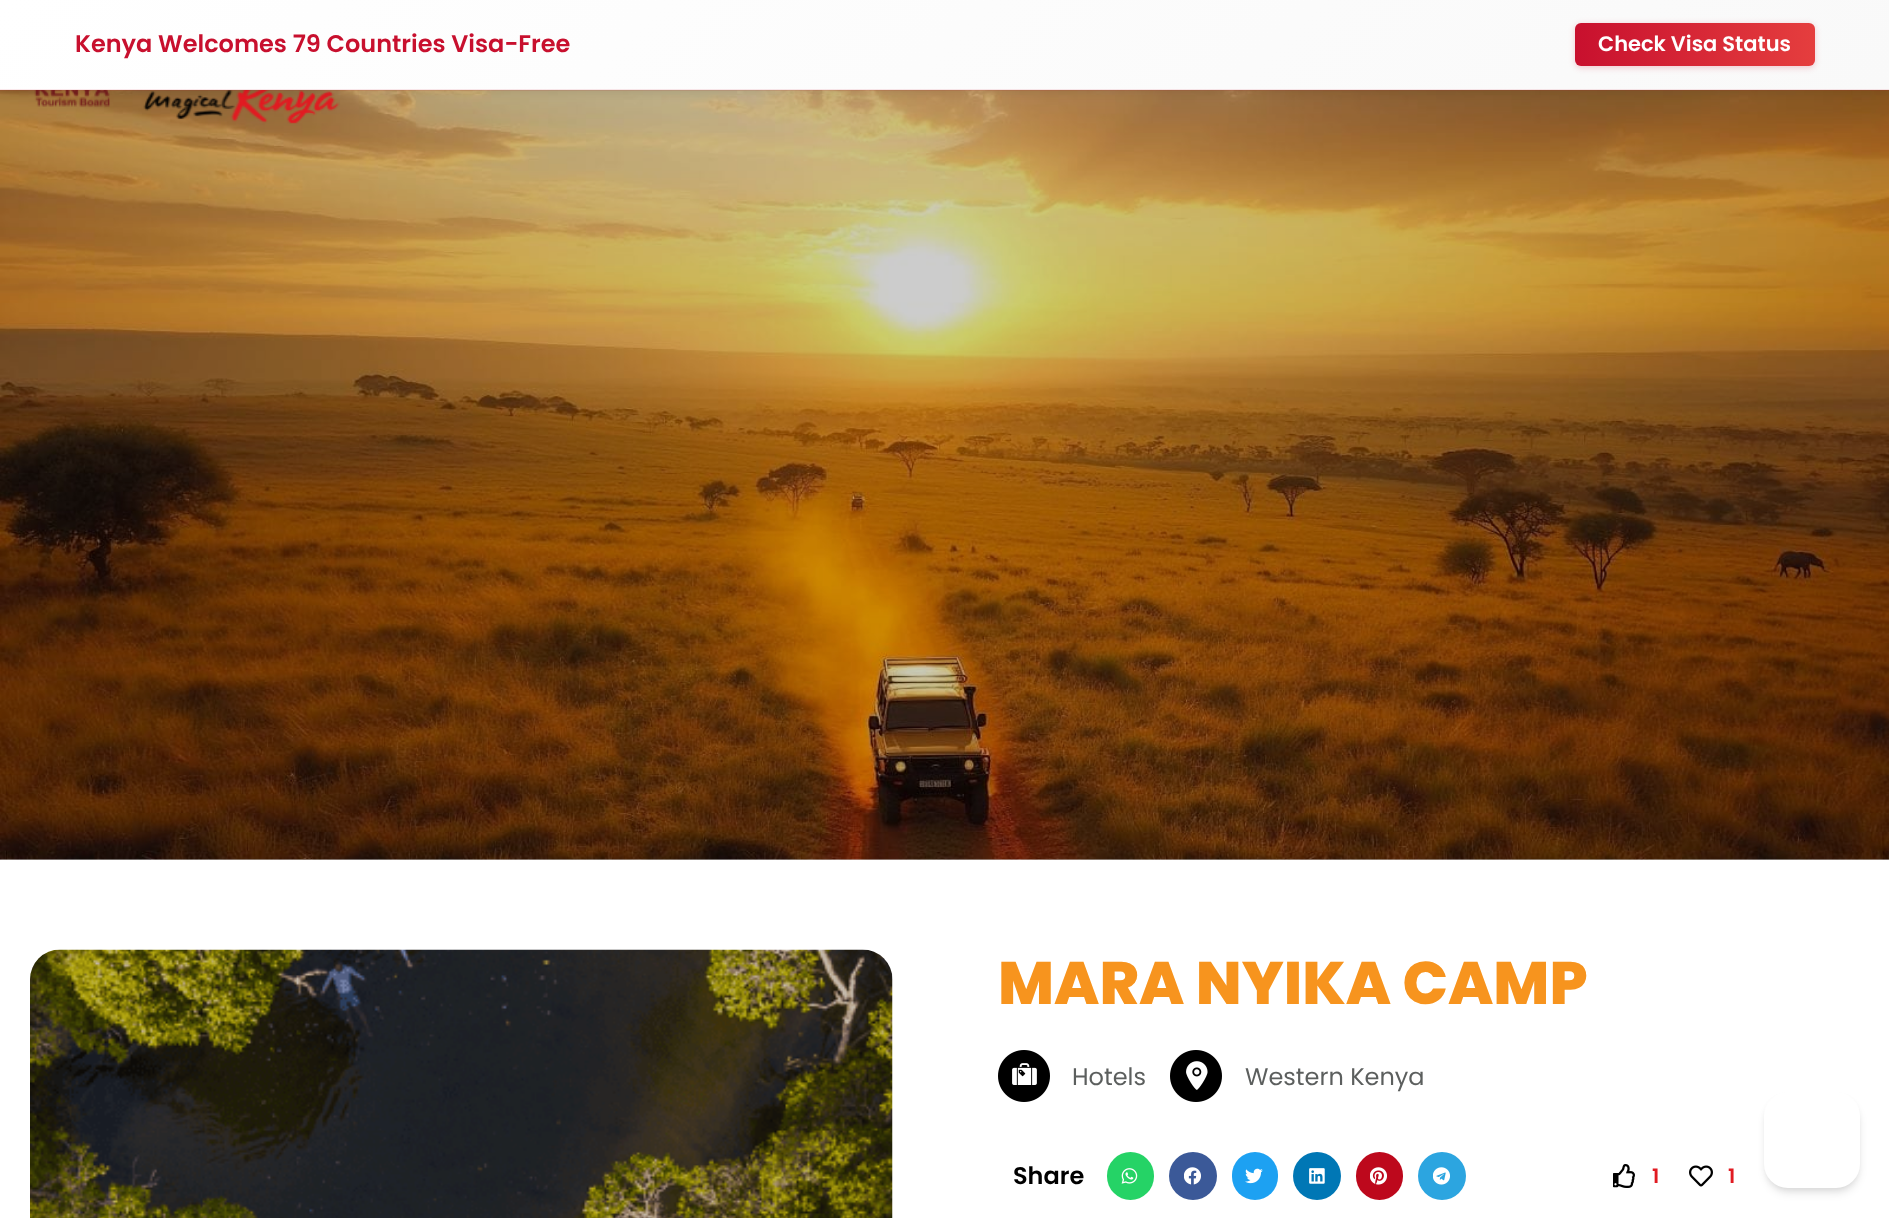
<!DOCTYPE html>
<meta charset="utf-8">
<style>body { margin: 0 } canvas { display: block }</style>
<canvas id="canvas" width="1889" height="1218"></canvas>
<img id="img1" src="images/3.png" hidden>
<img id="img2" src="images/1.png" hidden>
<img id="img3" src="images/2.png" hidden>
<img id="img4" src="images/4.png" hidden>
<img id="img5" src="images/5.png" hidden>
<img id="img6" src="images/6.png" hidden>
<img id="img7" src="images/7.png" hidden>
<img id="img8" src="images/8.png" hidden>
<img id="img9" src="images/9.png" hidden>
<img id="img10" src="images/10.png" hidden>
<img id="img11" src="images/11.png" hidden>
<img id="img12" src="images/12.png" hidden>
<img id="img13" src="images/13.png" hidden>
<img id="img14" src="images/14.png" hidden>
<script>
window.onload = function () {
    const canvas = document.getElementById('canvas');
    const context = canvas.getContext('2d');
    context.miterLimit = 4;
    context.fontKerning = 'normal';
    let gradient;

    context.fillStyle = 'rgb(255, 255, 255)';
    context.fillRect(0, 0, 1889, 1218);
    context.fillStyle = 'rgb(204, 204, 204)';
    context.fillRect(0, 859, 1889, 1);
    context.drawImage(document.getElementById('img1'), 0, 90, 1889, 770);
    context.drawImage(document.getElementById('img2'), 34, 90, 76, 17);
    context.drawImage(document.getElementById('img3'), 143, 90, 197, 34);
    context.fillStyle = 'rgba(0, 0, 0, 0.08)';
    context.filter = 'blur(4.5px)';
    context.beginPath();
    context.rect(0, 2, 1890, 90);
    context.fill();
    context.filter = 'none';
    gradient = context.createLinearGradient(450, -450, 1440, 539);
    gradient.addColorStop(0, 'rgb(255, 255, 255)');
    gradient.addColorStop(1, 'rgb(249, 249, 249)');
    context.fillStyle = gradient;
    context.fillRect(0, 0, 1889, 89);
    gradient = context.createLinearGradient(450, -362, 1440, 627);
    gradient.addColorStop(0, 'rgb(255, 255, 255)');
    gradient.addColorStop(1, 'rgb(249, 249, 249)');
    context.fillStyle = gradient;
    context.fillRect(0, 89, 1889, 1);
    context.fillStyle = 'rgba(200, 16, 46, 0.1)';
    context.fillRect(0, 89, 1889, 2);
    context.fillStyle = 'rgba(200, 16, 46, 0.2)';
    context.filter = 'blur(3px)';
    context.beginPath();
    context.roundRect(1575, 24, 240, 44, 6);
    context.fill();
    context.filter = 'none';
    gradient = context.createLinearGradient(1575, 44, 1815, 44);
    gradient.addColorStop(0, 'rgb(200, 16, 46)');
    gradient.addColorStop(1, 'rgb(229, 62, 62)');
    context.fillStyle = gradient;
    context.beginPath();
    context.roundRect(1575, 23, 240, 43, 6);
    context.fill();
    context.drawImage(document.getElementById('img4'), 30, 949, 863, 269);
    context.drawImage(document.getElementById('img5'), 998, 1050, 52, 52);
    context.drawImage(document.getElementById('img6'), 1170, 1050, 52, 52);
    context.fillStyle = 'rgb(37, 211, 102)';
    context.beginPath();
    context.roundRect(1107, 1152, 47, 48, 23.5);
    context.fill();
    context.drawImage(document.getElementById('img7'), 1121, 1168, 17, 16);
    context.fillStyle = 'rgb(59, 89, 152)';
    context.beginPath();
    context.arc(1193, 1176, 24, 0, 2 * Math.PI);
    context.fill();
    context.drawImage(document.getElementById('img8'), 1184, 1167, 17, 18);
    context.fillStyle = 'rgb(29, 161, 242)';
    context.beginPath();
    context.roundRect(1232, 1152, 46, 48, 23);
    context.fill();
    context.drawImage(document.getElementById('img9'), 1245, 1168, 18, 16);
    context.fillStyle = 'rgb(0, 119, 181)';
    context.beginPath();
    context.arc(1317, 1176, 24, 0, 2 * Math.PI);
    context.fill();
    context.drawImage(document.getElementById('img10'), 1309, 1168, 16, 16);
    context.fillStyle = 'rgb(189, 8, 28)';
    context.beginPath();
    context.roundRect(1356, 1152, 47, 48, 23.5);
    context.fill();
    context.drawImage(document.getElementById('img11'), 1370, 1167, 17, 18);
    context.fillStyle = 'rgb(44, 165, 224)';
    context.beginPath();
    context.arc(1442, 1176, 24, 0, 2 * Math.PI);
    context.fill();
    context.drawImage(document.getElementById('img12'), 1433, 1167, 17, 18);
    context.drawImage(document.getElementById('img13'), 1613, 1164, 22, 24);
    context.drawImage(document.getElementById('img14'), 1689, 1165, 24, 22);
    context.fillStyle = 'rgba(0, 0, 0, 0.1)';
    context.filter = 'blur(3px)';
    context.beginPath();
    context.roundRect(1767, 1098, 90, 90, 21);
    context.fill();
    context.filter = 'none';
    context.filter = 'blur(4.5px)';
    context.beginPath();
    context.roundRect(1766, 1100, 93, 93, 23);
    context.fill();
    context.filter = 'none';
    context.fillStyle = 'rgb(255, 255, 255)';
    context.beginPath();
    context.roundRect(1764, 1092, 96, 96, 24);
    context.fill();
    context.font = '600 24px Poppins';
    context.fillStyle = 'rgb(200, 16, 46)';
    context.fillText('Kenya Welcomes 79 Countries Visa-Free', 75, 52);
    context.font = '600 21px Poppins';
    context.fillStyle = 'rgb(255, 255, 255)';
    context.fillText('Check Visa Status', 1598, 51);
    context.font = '800 60px Poppins';
    context.fillStyle = 'rgb(247, 148, 30)';
    context.fillText('MARA NYIKA CAMP', 998, 1004);
    context.font = '24px Poppins';
    context.fillStyle = 'rgb(92, 95, 94)';
    context.fillText('Hotels', 1072, 1085);
    context.fillText('Western Kenya', 1245, 1085);
    context.font = '600 24px Poppins';
    context.fillStyle = 'rgb(0, 0, 0)';
    context.fillText('Share', 1013, 1184);
    context.font = '600 20px Poppins';
    context.fillStyle = 'rgb(225, 27, 34)';
    context.fillText('1', 1652, 1183);
    context.fillText('1', 1728, 1183);
};
</script>
